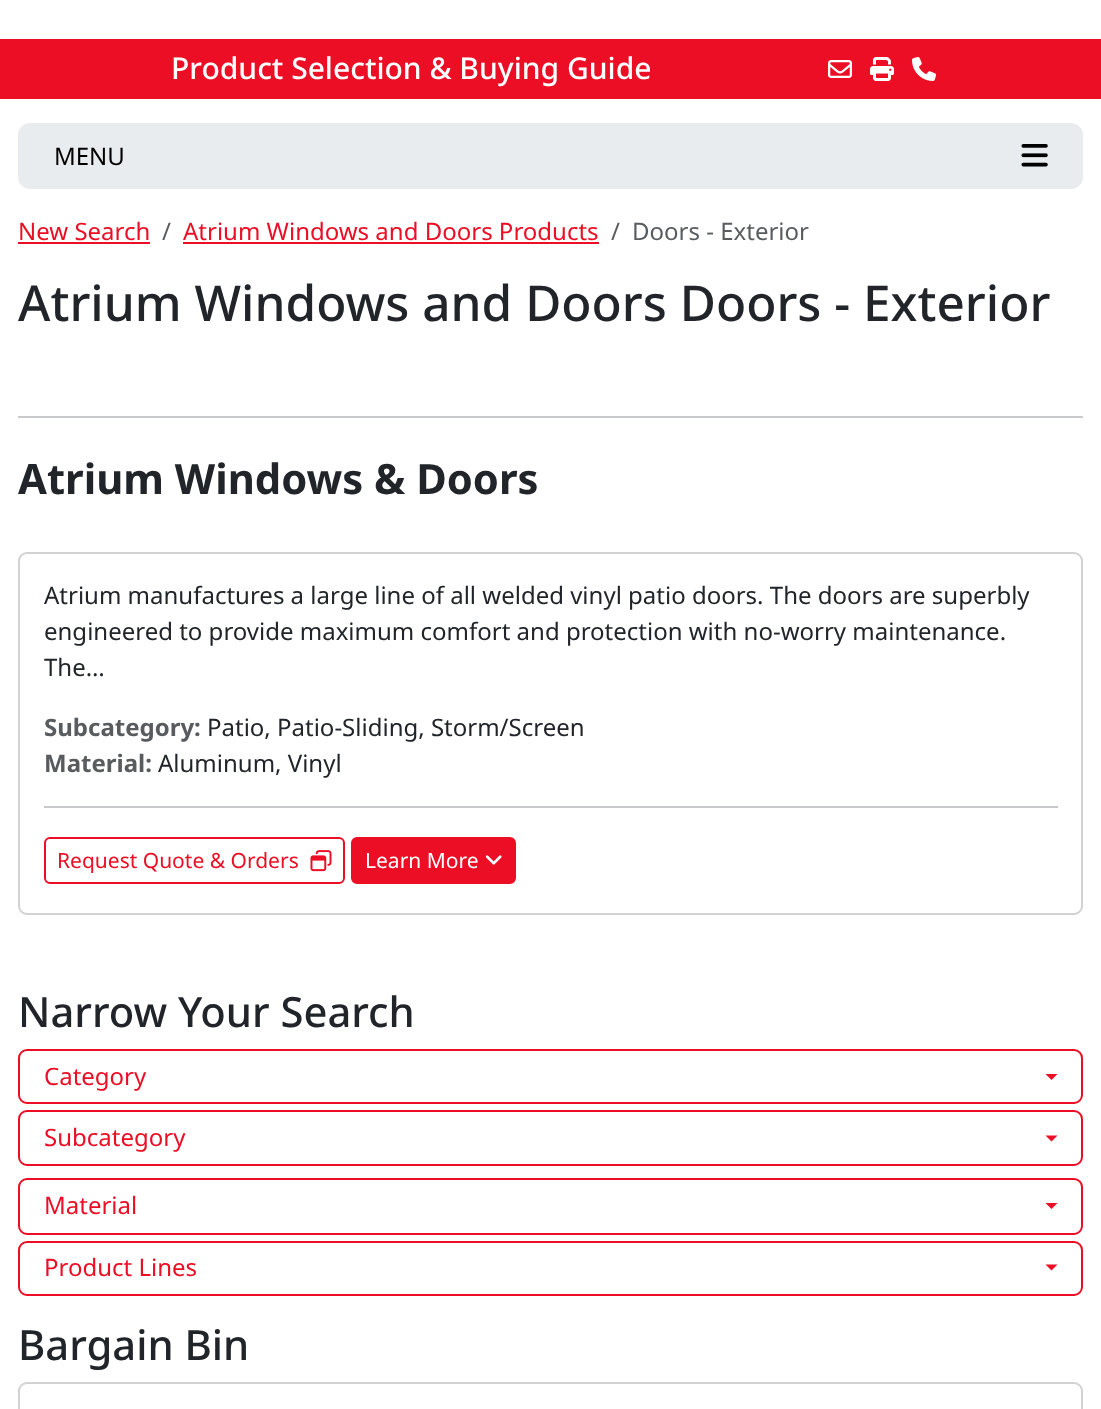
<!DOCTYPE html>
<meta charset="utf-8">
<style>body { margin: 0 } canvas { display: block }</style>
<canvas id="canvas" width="1101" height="1409"></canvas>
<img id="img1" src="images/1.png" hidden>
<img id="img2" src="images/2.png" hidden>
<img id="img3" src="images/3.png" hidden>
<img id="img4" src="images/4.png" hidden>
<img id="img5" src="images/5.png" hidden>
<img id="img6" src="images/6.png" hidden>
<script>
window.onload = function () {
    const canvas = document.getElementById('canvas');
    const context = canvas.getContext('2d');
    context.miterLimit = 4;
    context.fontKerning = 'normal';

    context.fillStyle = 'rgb(255, 255, 255)';
    context.fillRect(0, 0, 1101, 1409);
    context.fillStyle = 'rgb(235, 14, 36)';
    context.fillRect(0, 39, 1101, 60);
    context.drawImage(document.getElementById('img1'), 828, 60, 24, 18);
    context.drawImage(document.getElementById('img2'), 870, 57, 24, 24);
    context.drawImage(document.getElementById('img3'), 912, 57, 24, 24);
    context.fillStyle = 'rgb(233, 236, 239)';
    context.beginPath();
    context.roundRect(18, 123, 1065, 66, 12);
    context.fill();
    context.drawImage(document.getElementById('img4'), 1021, 144, 27, 23);
    context.fillStyle = 'rgb(235, 14, 36)';
    context.fillRect(18, 242, 132, 2);
    context.fillRect(183, 242, 416, 2);
    context.fillStyle = 'rgb(200, 201, 202)';
    context.fillRect(18, 416, 1065, 2);
    context.beginPath();
    context.roundRect(19, 553, 1063, 361, 8);
    context.strokeStyle = 'rgb(210, 210, 210)';
    context.lineWidth = 2;
    context.stroke();
    context.fillRect(44, 806, 1014, 2);
    context.beginPath();
    context.roundRect(45, 838, 299, 45, 5);
    context.strokeStyle = 'rgb(235, 14, 36)';
    context.stroke();
    context.drawImage(document.getElementById('img5'), 310, 850, 22, 22);
    context.fillStyle = 'rgb(235, 14, 36)';
    context.beginPath();
    context.roundRect(352, 838, 163, 45, 5);
    context.fill();
    context.stroke();
    context.drawImage(document.getElementById('img6'), 485, 855, 17, 10);
    context.beginPath();
    context.roundRect(19, 1050, 1063, 53, 8);
    context.stroke();
    context.beginPath();
    context.moveTo(1045.5, 1074);
    context.lineTo(1057.5, 1074);
    context.lineTo(1051.5, 1080);
    context.closePath();
    context.fill();
    context.beginPath();
    context.roundRect(19, 1111, 1063, 54, 8);
    context.stroke();
    context.beginPath();
    context.moveTo(1045.5, 1135.5);
    context.lineTo(1057.5, 1135.5);
    context.lineTo(1051.5, 1141.5);
    context.closePath();
    context.fill();
    context.beginPath();
    context.roundRect(19, 1179, 1063, 55, 8);
    context.stroke();
    context.beginPath();
    context.moveTo(1045.5, 1203);
    context.lineTo(1057.5, 1203);
    context.lineTo(1051.5, 1209);
    context.closePath();
    context.fill();
    context.beginPath();
    context.roundRect(19, 1242, 1063, 53, 8);
    context.stroke();
    context.beginPath();
    context.moveTo(1045.5, 1264.5);
    context.lineTo(1057.5, 1264.5);
    context.lineTo(1051.5, 1270.5);
    context.closePath();
    context.fill();
    context.beginPath();
    context.roundRect(19, 1383, 1063, 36, 8);
    context.strokeStyle = 'rgb(210, 210, 210)';
    context.stroke();
    context.font = '500 30px Noto Sans';
    context.fillStyle = 'rgb(255, 255, 255)';
    context.fillText('Product Selection & Buying Guide', 171, 79);
    context.font = '24px Noto Sans';
    context.fillStyle = 'rgb(0, 0, 0)';
    context.fillText('MENU', 54, 165);
    context.fillStyle = 'rgb(235, 14, 36)';
    context.fillText('New Search', 18, 240);
    context.fillStyle = 'rgb(89, 92, 95)';
    context.fillText('/', 162, 240);
    context.fillStyle = 'rgb(235, 14, 36)';
    context.fillText('Atrium Windows and Doors Products', 183, 240);
    context.fillStyle = 'rgb(89, 92, 95)';
    context.fillText('/', 611, 240);
    context.fillText('Doors - Exterior', 632, 240);
    context.font = '500 49.5px Noto Sans';
    context.fillStyle = 'rgb(33, 37, 41)';
    context.fillText('Atrium Windows and Doors Doors - Exterior', 18, 321);
    context.font = 'bold 41.75px Noto Sans';
    context.fillText('Atrium Windows & Doors', 18, 494);
    context.font = '24px Noto Sans';
    context.fillText('Atrium manufactures a large line of all welded vinyl patio doors. The doors are superbly', 44, 604);
    context.fillText('engineered to provide maximum comfort and protection with no-worry maintenance.', 44, 640);
    context.fillText('The…', 44, 676);
    context.font = 'bold 24px Noto Sans';
    context.fillStyle = 'rgb(89, 92, 95)';
    context.fillText('Subcategory:', 44, 736);
    context.font = '24px Noto Sans';
    context.fillStyle = 'rgb(33, 37, 41)';
    context.fillText('Patio, Patio-Sliding, Storm/Screen', 207, 736);
    context.font = 'bold 24px Noto Sans';
    context.fillStyle = 'rgb(89, 92, 95)';
    context.fillText('Material:', 44, 772);
    context.font = '24px Noto Sans';
    context.fillStyle = 'rgb(33, 37, 41)';
    context.fillText('Aluminum, Vinyl', 158, 772);
    context.font = '21px Noto Sans';
    context.fillStyle = 'rgb(235, 14, 36)';
    context.fillText('Request Quote & Orders', 57, 868);
    context.fillStyle = 'rgb(255, 255, 255)';
    context.fillText('Learn More', 365, 868);
    context.font = '500 41.75px Noto Sans';
    context.fillStyle = 'rgb(33, 37, 41)';
    context.fillText('Narrow Your Search', 18, 1027);
    context.font = '24px Noto Sans';
    context.fillStyle = 'rgb(235, 14, 36)';
    context.fillText('Category', 44, 1085);
    context.fillText('Subcategory', 44, 1146);
    context.fillText('Material', 44, 1214);
    context.fillText('Product Lines', 44, 1276);
    context.font = '500 41.75px Noto Sans';
    context.fillStyle = 'rgb(33, 37, 41)';
    context.fillText('Bargain Bin', 18, 1360);
};
</script>
